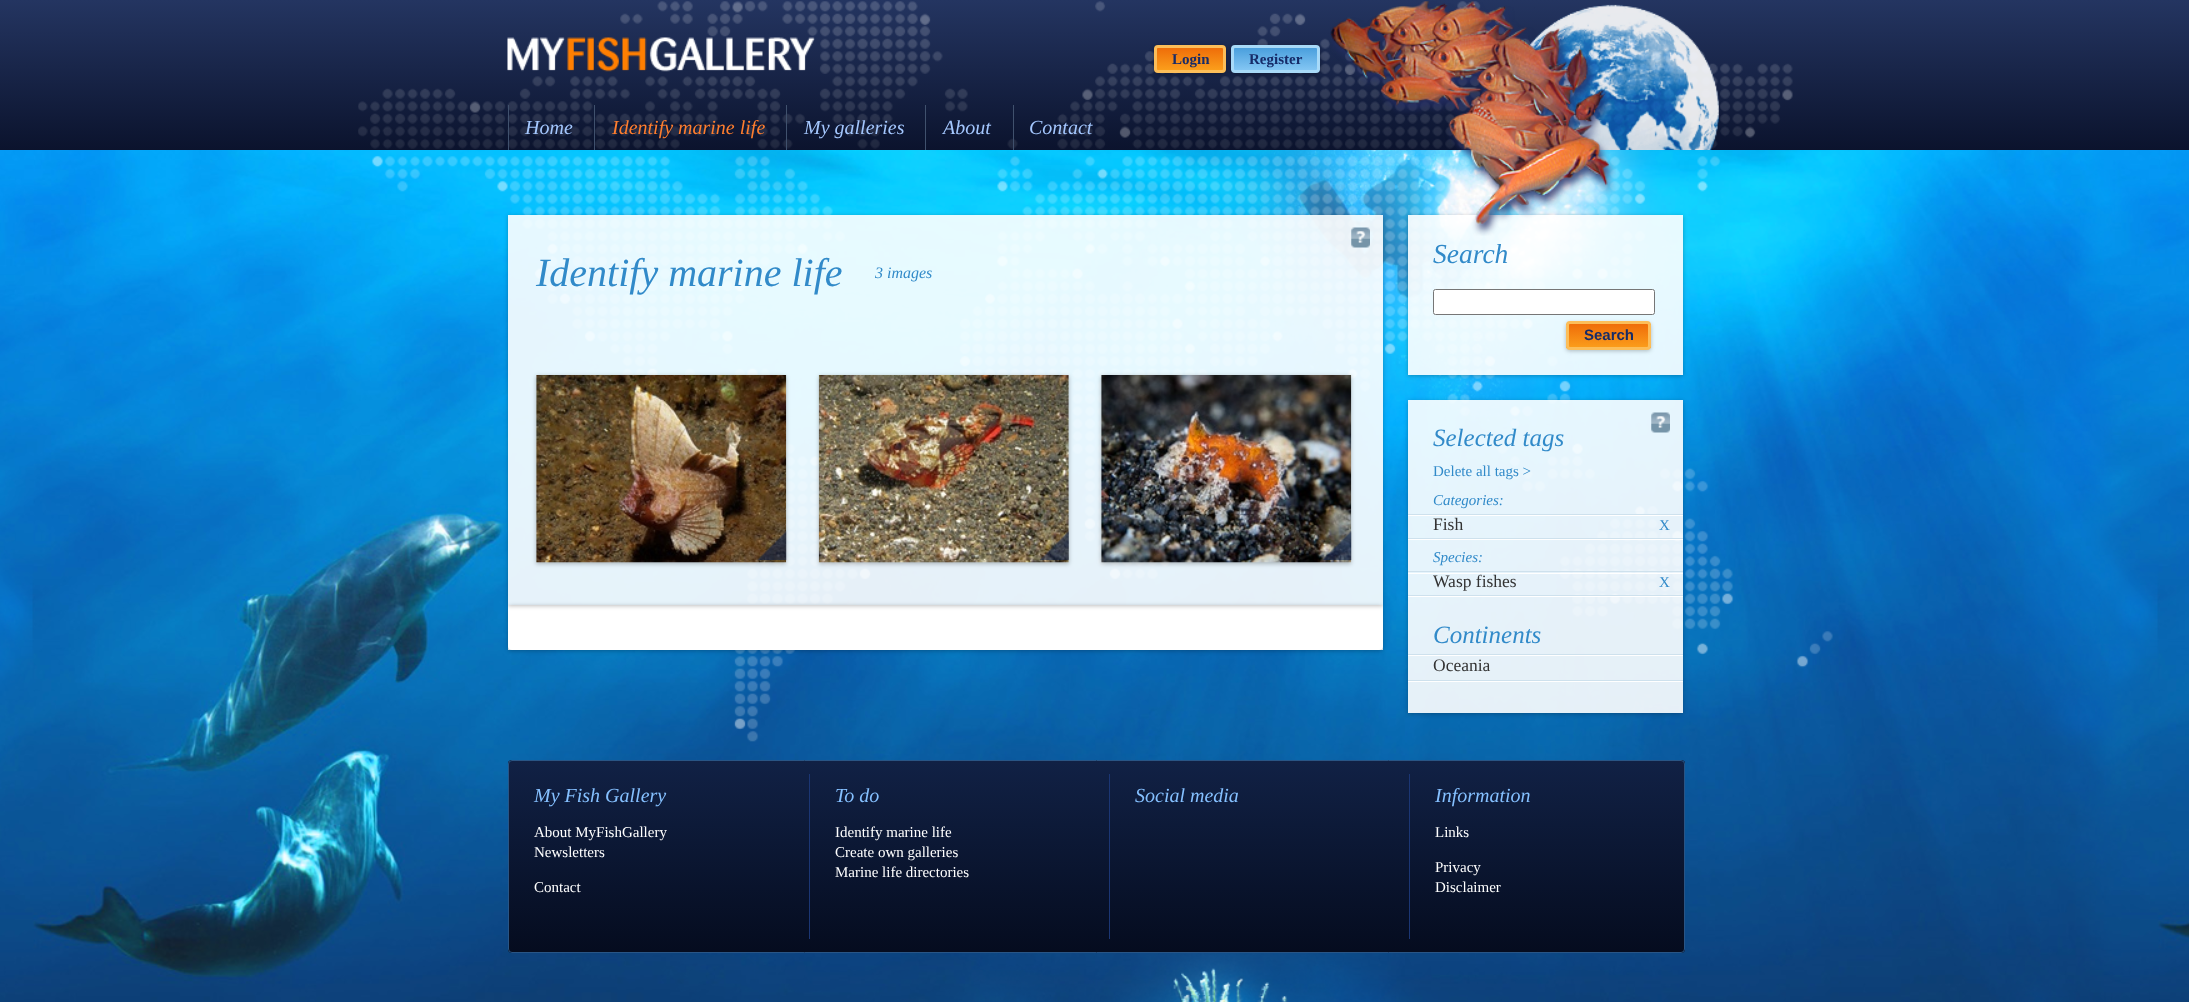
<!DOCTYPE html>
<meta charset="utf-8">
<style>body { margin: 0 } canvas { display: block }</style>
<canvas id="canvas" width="2189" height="1002"></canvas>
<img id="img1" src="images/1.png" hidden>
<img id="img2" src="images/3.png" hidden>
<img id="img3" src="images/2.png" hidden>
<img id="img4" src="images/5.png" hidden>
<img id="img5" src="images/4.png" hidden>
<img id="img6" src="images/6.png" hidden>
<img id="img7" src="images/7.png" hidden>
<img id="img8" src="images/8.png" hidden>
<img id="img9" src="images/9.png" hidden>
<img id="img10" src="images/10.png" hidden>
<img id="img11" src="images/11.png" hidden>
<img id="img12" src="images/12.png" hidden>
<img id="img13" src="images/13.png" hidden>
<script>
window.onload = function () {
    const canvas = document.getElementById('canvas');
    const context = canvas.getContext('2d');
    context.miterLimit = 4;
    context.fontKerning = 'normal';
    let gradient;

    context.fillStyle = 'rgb(255, 255, 255)';
    context.fillRect(0, 0, 2189, 1002);
    context.drawImage(document.getElementById('img1'), 0, 150, 2189, 852);
    gradient = context.createLinearGradient(1095, 0, 1095, 150);
    gradient.addColorStop(0, 'rgb(36, 53, 97)');
    gradient.addColorStop(1, 'rgb(11, 19, 45)');
    context.fillStyle = gradient;
    context.fillRect(0, 0, 2189, 150);
    context.drawImage(document.getElementById('img2'), 507, 37, 308, 35);
    context.drawImage(document.getElementById('img3'), 358, 1, 1435, 148);
    context.fillStyle = 'rgba(0, 0, 0, 0.25)';
    context.filter = 'blur(2px)';
    context.beginPath();
    context.roundRect(1154, 46, 72, 28, 4);
    context.fill();
    context.filter = 'none';
    gradient = context.createLinearGradient(1190, 48, 1190, 70);
    gradient.addColorStop(0, 'rgb(239, 109, 9)');
    gradient.addColorStop(1, 'rgb(251, 158, 27)');
    context.fillStyle = gradient;
    context.fillRect(1154, 48, 72, 22);
    context.beginPath();
    context.roundRect(1155.5, 46.5, 69, 25, 2.5);
    context.strokeStyle = 'rgb(252, 190, 89)';
    context.lineWidth = 3;
    context.stroke();
    context.fillStyle = 'rgba(0, 0, 0, 0.25)';
    context.filter = 'blur(2px)';
    context.beginPath();
    context.roundRect(1231, 46, 89, 28, 4);
    context.fill();
    context.filter = 'none';
    gradient = context.createLinearGradient(1276, 48, 1276, 70);
    gradient.addColorStop(0, 'rgb(74, 159, 221)');
    gradient.addColorStop(1, 'rgb(131, 198, 243)');
    context.fillStyle = gradient;
    context.fillRect(1231, 48, 89, 22);
    context.beginPath();
    context.roundRect(1232.5, 46.5, 86, 25, 2.5);
    context.strokeStyle = 'rgb(168, 218, 248)';
    context.stroke();
    context.drawImage(document.getElementById('img4'), 1528, 4, 192, 146);
    context.fillStyle = 'rgba(255, 255, 255, 0.9)';
    context.fillRect(508, 215, 875, 435);
    context.fillRect(1408, 215, 275, 160);
    context.save();
    context.beginPath();
    context.moveTo(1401, 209);
    context.lineTo(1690, 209);
    context.lineTo(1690, 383);
    context.lineTo(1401, 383);
    context.closePath();
    context.moveTo(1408, 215);
    context.lineTo(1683, 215);
    context.lineTo(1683, 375);
    context.lineTo(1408, 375);
    context.closePath();
    context.clip('evenodd');
    context.fillStyle = 'rgba(0, 0, 0, 0.25)';
    context.filter = 'blur(2px)';
    context.beginPath();
    context.rect(1408, 216, 275, 160);
    context.fill();
    context.filter = 'none';
    context.restore();
    context.drawImage(document.getElementById('img5'), 1330, 1, 286, 235);
    context.fillStyle = 'rgb(64, 81, 109)';
    context.fillRect(508, 105, 1, 45);
    context.fillRect(594, 105, 1, 45);
    context.fillRect(786, 105, 1, 45);
    context.fillRect(925, 105, 1, 45);
    context.fillRect(1013, 105, 1, 45);
    context.fillStyle = 'rgba(0, 0, 0, 0.25)';
    context.filter = 'blur(2px)';
    context.beginPath();
    context.roundRect(508, 606, 875, 45, 4);
    context.fill();
    context.filter = 'none';
    context.fillStyle = 'rgb(255, 255, 255)';
    context.beginPath();
    context.roundRect(508, 605, 875, 45, [0, 0, 4, 4]);
    context.fill();
    context.save();
    context.beginPath();
    context.moveTo(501, 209);
    context.lineTo(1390, 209);
    context.lineTo(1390, 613);
    context.lineTo(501, 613);
    context.closePath();
    context.moveTo(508, 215);
    context.lineTo(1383, 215);
    context.lineTo(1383, 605);
    context.lineTo(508, 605);
    context.closePath();
    context.clip('evenodd');
    context.fillStyle = 'rgba(0, 0, 0, 0.25)';
    context.filter = 'blur(2px)';
    context.beginPath();
    context.rect(508, 216, 875, 390);
    context.fill();
    context.filter = 'none';
    context.restore();
    context.drawImage(document.getElementById('img6'), 1351, 227, 19, 21);
    context.fillStyle = 'rgba(0, 0, 0, 0.25)';
    context.filter = 'blur(2px)';
    context.beginPath();
    context.rect(536, 376, 250, 188);
    context.fill();
    context.filter = 'none';
    context.drawImage(document.getElementById('img7'), 536, 375, 251, 188);
    context.drawImage(document.getElementById('img8'), 757, 531, 30, 29);
    context.filter = 'blur(2px)';
    context.beginPath();
    context.rect(819, 376, 250, 188);
    context.fill();
    context.filter = 'none';
    context.drawImage(document.getElementById('img9'), 818, 375, 251, 188);
    context.drawImage(document.getElementById('img10'), 1040, 531, 29, 29);
    context.filter = 'blur(2px)';
    context.beginPath();
    context.rect(1101, 376, 250, 188);
    context.fill();
    context.filter = 'none';
    context.drawImage(document.getElementById('img11'), 1101, 375, 251, 188);
    context.drawImage(document.getElementById('img12'), 1322, 531, 30, 29);
    context.fillStyle = 'rgb(255, 255, 255)';
    context.beginPath();
    context.roundRect(1433.5, 289.5, 221, 25, 2);
    context.fill();
    context.strokeStyle = 'rgb(118, 118, 118)';
    context.lineWidth = 1;
    context.stroke();
    context.fillStyle = 'rgba(0, 0, 0, 0.25)';
    context.filter = 'blur(2px)';
    context.beginPath();
    context.roundRect(1566, 323, 85, 28, 4);
    context.fill();
    context.filter = 'none';
    gradient = context.createLinearGradient(1609, 324, 1609, 348);
    gradient.addColorStop(0, 'rgb(239, 109, 9)');
    gradient.addColorStop(1, 'rgb(251, 158, 27)');
    context.fillStyle = gradient;
    context.fillRect(1566, 324, 85, 24);
    context.beginPath();
    context.roundRect(1567.5, 322.5, 82, 26, 2.5);
    context.strokeStyle = 'rgb(252, 190, 89)';
    context.lineWidth = 3;
    context.stroke();
    context.fillStyle = 'rgba(255, 255, 255, 0.9)';
    context.fillRect(1408, 400, 275, 313);
    context.save();
    context.beginPath();
    context.moveTo(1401, 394);
    context.lineTo(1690, 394);
    context.lineTo(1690, 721);
    context.lineTo(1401, 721);
    context.closePath();
    context.moveTo(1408, 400);
    context.lineTo(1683, 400);
    context.lineTo(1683, 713);
    context.lineTo(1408, 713);
    context.closePath();
    context.clip('evenodd');
    context.fillStyle = 'rgba(0, 0, 0, 0.25)';
    context.filter = 'blur(2px)';
    context.beginPath();
    context.rect(1408, 401, 275, 313);
    context.fill();
    context.filter = 'none';
    context.restore();
    context.drawImage(document.getElementById('img13'), 1651, 412, 19, 21);
    context.fillStyle = 'rgb(255, 255, 255)';
    context.fillRect(1408, 515, 275, 1);
    context.fillStyle = 'rgb(206, 225, 237)';
    context.fillRect(1408, 514, 275, 1);
    context.fillStyle = 'rgb(255, 255, 255)';
    context.fillRect(1408, 539, 275, 1);
    context.fillStyle = 'rgb(206, 225, 237)';
    context.fillRect(1408, 538, 275, 1);
    context.fillStyle = 'rgb(255, 255, 255)';
    context.fillRect(1408, 573, 275, 1);
    context.fillStyle = 'rgb(206, 225, 237)';
    context.fillRect(1408, 571, 275, 1);
    context.fillStyle = 'rgb(255, 255, 255)';
    context.fillRect(1408, 596, 275, 1);
    context.fillStyle = 'rgb(206, 225, 237)';
    context.fillRect(1408, 595, 275, 1);
    context.fillStyle = 'rgb(255, 255, 255)';
    context.fillRect(1408, 655, 275, 1);
    context.fillStyle = 'rgb(206, 225, 237)';
    context.fillRect(1408, 654, 275, 1);
    context.fillStyle = 'rgb(255, 255, 255)';
    context.fillRect(1408, 681, 275, 1);
    context.fillStyle = 'rgb(206, 225, 237)';
    context.fillRect(1408, 680, 275, 1);
    context.fillStyle = 'rgb(5, 12, 31)';
    context.beginPath();
    context.roundRect(508, 760, 1177, 193, 4);
    context.fill();
    context.save();
    context.beginPath();
    context.roundRect(508, 760, 1177, 193, 4);
    context.clip();
    gradient = context.createLinearGradient(1096, 761, 1096, 951);
    gradient.addColorStop(0, 'rgb(17, 33, 69)');
    gradient.addColorStop(1, 'rgb(5, 12, 31)');
    context.fillStyle = gradient;
    context.fillRect(508, 761, 1177, 190);
    context.restore();
    context.beginPath();
    context.roundRect(508.5, 760.5, 1176, 192, 3.5);
    context.strokeStyle = 'rgb(41, 85, 133)';
    context.lineWidth = 1;
    context.stroke();
    context.fillStyle = 'rgb(27, 54, 116)';
    context.fillRect(809, 774, 1, 165);
    context.fillRect(1109, 774, 1, 165);
    context.fillRect(1409, 774, 1, 165);
    context.font = 'bold 15px Liberation Serif';
    context.fillStyle = 'rgb(22, 43, 104)';
    context.fillText('Login', 1172, 64);
    context.fillText('Register', 1249, 64);
    context.font = 'italic 20px Liberation Serif';
    context.fillStyle = 'rgb(164, 199, 254)';
    context.fillText('Home', 525, 134);
    context.fillStyle = 'rgb(255, 126, 46)';
    context.fillText('Identify marine life', 612, 134);
    context.fillStyle = 'rgb(164, 199, 254)';
    context.fillText('My galleries', 804, 134);
    context.fillText('About', 943, 134);
    context.fillText('Contact', 1029, 134);
    context.font = 'italic 40px Liberation Serif';
    context.fillStyle = 'rgb(49, 138, 201)';
    context.fillText('Identify marine life', 536, 286);
    context.font = 'italic 16px Liberation Serif';
    context.fillText('3 images', 875, 278);
    context.font = 'italic 27.5px Liberation Serif';
    context.fillText('Search', 1433, 263);
    context.font = 'bold 15px Liberation Sans';
    context.fillStyle = 'rgb(22, 43, 104)';
    context.fillText('Search', 1584, 340);
    context.font = 'italic 25px Liberation Serif';
    context.fillStyle = 'rgb(49, 138, 201)';
    context.fillText('Selected tags', 1433, 446);
    context.font = '15px Liberation Serif';
    context.fillText('Delete all tags >', 1433, 476);
    context.font = 'italic 15px Liberation Serif';
    context.fillText('Categories:', 1433, 505);
    context.font = '17.5px Liberation Serif';
    context.fillStyle = 'rgb(51, 51, 51)';
    context.fillText('Fish', 1433, 530);
    context.font = '15px Liberation Serif';
    context.fillStyle = 'rgb(49, 138, 201)';
    context.fillText('X', 1659, 530);
    context.font = 'italic 15px Liberation Serif';
    context.fillText('Species:', 1433, 562);
    context.font = '17.5px Liberation Serif';
    context.fillStyle = 'rgb(51, 51, 51)';
    context.fillText('Wasp fishes', 1433, 587);
    context.font = '15px Liberation Serif';
    context.fillStyle = 'rgb(49, 138, 201)';
    context.fillText('X', 1659, 587);
    context.font = 'italic 25px Liberation Serif';
    context.fillText('Continents', 1433, 643);
    context.font = '17.5px Liberation Serif';
    context.fillStyle = 'rgb(51, 51, 51)';
    context.fillText('Oceania', 1433, 671);
    context.font = 'italic 20px Liberation Serif';
    context.fillStyle = 'rgb(133, 192, 255)';
    context.fillText('My Fish Gallery', 534, 802);
    context.font = '15px Liberation Serif';
    context.fillStyle = 'rgb(255, 255, 255)';
    context.fillText('About MyFishGallery', 534, 837);
    context.fillText('Newsletters', 534, 857);
    context.fillText('Contact', 534, 892);
    context.font = 'italic 20px Liberation Serif';
    context.fillStyle = 'rgb(133, 192, 255)';
    context.fillText('To do', 835, 802);
    context.font = '15px Liberation Serif';
    context.fillStyle = 'rgb(255, 255, 255)';
    context.fillText('Identify marine life', 835, 837);
    context.fillText('Create own galleries', 835, 857);
    context.fillText('Marine life directories', 835, 877);
    context.font = 'italic 20px Liberation Serif';
    context.fillStyle = 'rgb(133, 192, 255)';
    context.fillText('Social media', 1135, 802);
    context.fillText('Information', 1435, 802);
    context.font = '15px Liberation Serif';
    context.fillStyle = 'rgb(255, 255, 255)';
    context.fillText('Links', 1435, 837);
    context.fillText('Privacy', 1435, 872);
    context.fillText('Disclaimer', 1435, 892);
};
</script>
